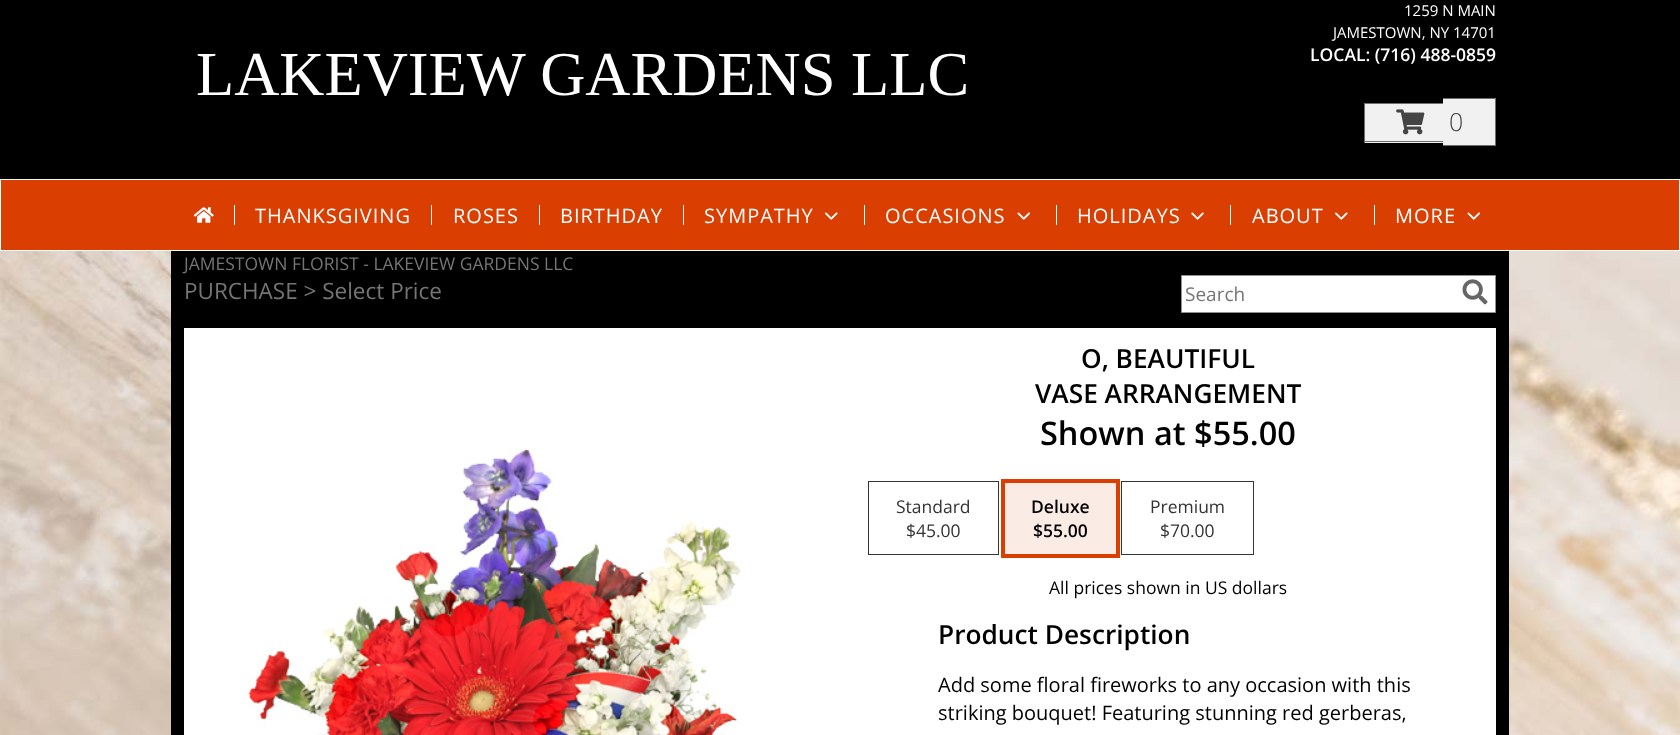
<!DOCTYPE html>
<meta charset="utf-8">
<style>body { margin: 0 } canvas { display: block }</style>
<canvas id="canvas" width="1680" height="735"></canvas>
<img id="img1" src="images/1.png" hidden>
<img id="img2" src="images/2.png" hidden>
<img id="img3" src="images/3.png" hidden>
<img id="img4" src="images/4.png" hidden>
<img id="img5" src="images/5.png" hidden>
<img id="img6" src="images/6.png" hidden>
<img id="img7" src="images/7.png" hidden>
<img id="img8" src="images/8.png" hidden>
<script>
window.onload = function () {
    const canvas = document.getElementById('canvas');
    const context = canvas.getContext('2d');
    context.miterLimit = 4;
    context.fontKerning = 'normal';

    context.fillStyle = 'rgb(255, 255, 255)';
    context.fillRect(0, 0, 1680, 735);
    context.drawImage(document.getElementById('img1'), 0, 251, 1680, 484);
    context.fillStyle = 'rgb(0, 0, 0)';
    context.fillRect(171, 251, 1338, 484);
    context.fillRect(0, 0, 1680, 179);
    context.fillStyle = 'rgb(241, 241, 241)';
    context.fillRect(1365, 104, 78, 39);
    context.fillStyle = 'rgb(110, 110, 110)';
    context.fillRect(1364, 103, 79, 1);
    context.fillRect(1364, 141, 79, 1);
    context.fillRect(1364, 103, 1, 40);
    context.fillStyle = 'rgb(241, 241, 241)';
    context.fillRect(1443, 98, 7, 48);
    context.fillStyle = 'rgb(110, 110, 110)';
    context.fillRect(1443, 98, 53, 1);
    context.fillRect(1443, 145, 7, 1);
    context.fillStyle = 'rgb(241, 241, 241)';
    context.fillRect(1450, 99, 45, 46);
    context.fillStyle = 'rgb(110, 110, 110)';
    context.fillRect(1495, 98, 1, 48);
    context.fillRect(1450, 145, 46, 1);
    context.drawImage(document.getElementById('img2'), 1396, 109, 29, 26);
    context.fillStyle = 'rgb(218, 62, 0)';
    context.fillRect(1, 180, 1678, 70);
    context.drawImage(document.getElementById('img3'), 194, 207, 20, 16);
    context.fillStyle = 'rgb(255, 255, 255)';
    context.fillRect(234, 205, 1, 20);
    context.fillRect(431, 205, 1, 20);
    context.fillRect(539, 205, 1, 20);
    context.fillRect(683, 205, 1, 20);
    context.drawImage(document.getElementById('img4'), 825, 212, 13, 8);
    context.fillRect(864, 205, 1, 20);
    context.drawImage(document.getElementById('img5'), 1017, 212, 13, 8);
    context.fillRect(1056, 205, 1, 20);
    context.drawImage(document.getElementById('img6'), 1191, 212, 13, 8);
    context.fillRect(1230, 205, 1, 20);
    context.drawImage(document.getElementById('img4'), 1335, 212, 13, 8);
    context.fillRect(1374, 205, 1, 20);
    context.drawImage(document.getElementById('img5'), 1467, 212, 13, 8);
    context.beginPath();
    context.rect(1181.5, 275.5, 314, 37);
    context.fill();
    context.strokeStyle = 'rgb(145, 145, 145)';
    context.stroke();
    context.drawImage(document.getElementById('img7'), 1462, 279, 26, 26);
    context.fillRect(184, 328, 1312, 407);
    context.drawImage(document.getElementById('img8'), 248, 449, 497, 286);
    context.strokeStyle = 'rgb(51, 51, 51)';
    context.strokeRect(868.5, 481.5, 130, 73);
    context.strokeStyle = 'rgb(218, 62, 0)';
    context.lineWidth = 4;
    context.strokeRect(1003, 481, 115, 75);
    context.fillStyle = 'rgb(251, 235, 229)';
    context.fillRect(1005, 483, 111, 71);
    context.strokeStyle = 'rgb(51, 51, 51)';
    context.lineWidth = 1;
    context.strokeRect(1121.5, 481.5, 132, 73);
    context.font = '62.5px Liberation Serif';
    context.fillStyle = 'rgb(255, 255, 255)';
    context.fillText('LAKEVIEW GARDENS LLC', 196, 95);
    context.font = '15px Open Sans';
    context.fillText('1259 N MAIN', 1404, 16);
    context.fillText('JAMESTOWN, NY 14701', 1333, 38);
    context.font = '600 17.5px Open Sans';
    context.fillText('LOCAL: (716) 488-0859', 1310, 61);
    context.font = '300 25px Open Sans';
    context.fillStyle = 'rgb(68, 68, 68)';
    context.fillText('0', 1449, 131);
    context.letterSpacing = '1px';
    context.font = '20px Open Sans';
    context.fillStyle = 'rgb(255, 255, 255)';
    context.fillText('THANKSGIVING', 255, 223);
    context.fillText('ROSES', 453, 223);
    context.fillText('BIRTHDAY', 560, 223);
    context.fillText('SYMPATHY', 704, 223);
    context.fillText('OCCASIONS', 885, 223);
    context.fillText('HOLIDAYS', 1077, 223);
    context.fillText('ABOUT', 1252, 223);
    context.fillText('MORE', 1395, 223);
    context.letterSpacing = '0px';
    context.font = '17.5px Open Sans';
    context.fillStyle = 'rgb(117, 117, 117)';
    context.fillText('JAMESTOWN FLORIST - LAKEVIEW GARDENS LLC', 184, 270);
    context.font = '22.5px Open Sans';
    context.fillText('PURCHASE > Select Price', 184, 299);
    context.font = '19px Open Sans';
    context.fillText('Search', 1185, 301);
    context.font = '600 26.25px Open Sans';
    context.fillStyle = 'rgb(0, 0, 0)';
    context.fillText('O, BEAUTIFUL', 1081, 368);
    context.fillText('VASE ARRANGEMENT', 1035, 403);
    context.font = '600 32.5px Open Sans';
    context.fillText('Shown at $55.00', 1040, 445);
    context.font = '17.5px Open Sans';
    context.fillStyle = 'rgb(51, 51, 51)';
    context.fillText('Standard', 896, 513);
    context.fillText('$45.00', 906, 537);
    context.font = '600 17.5px Open Sans';
    context.fillStyle = 'rgb(0, 0, 0)';
    context.fillText('Deluxe', 1031, 513);
    context.fillText('$55.00', 1033, 537);
    context.font = '17.5px Open Sans';
    context.fillStyle = 'rgb(51, 51, 51)';
    context.fillText('Premium', 1150, 513);
    context.fillText('$70.00', 1160, 537);
    context.fillStyle = 'rgb(0, 0, 0)';
    context.fillText('All prices shown in US dollars', 1049, 594);
    context.font = '600 26.25px Open Sans';
    context.fillText('Product Description', 938, 644);
    context.font = '20px Open Sans';
    context.fillText('Add some floral fireworks to any occasion with this', 938, 692);
    context.fillText('striking bouquet! Featuring stunning red gerberas,', 938, 720);
};
</script>
